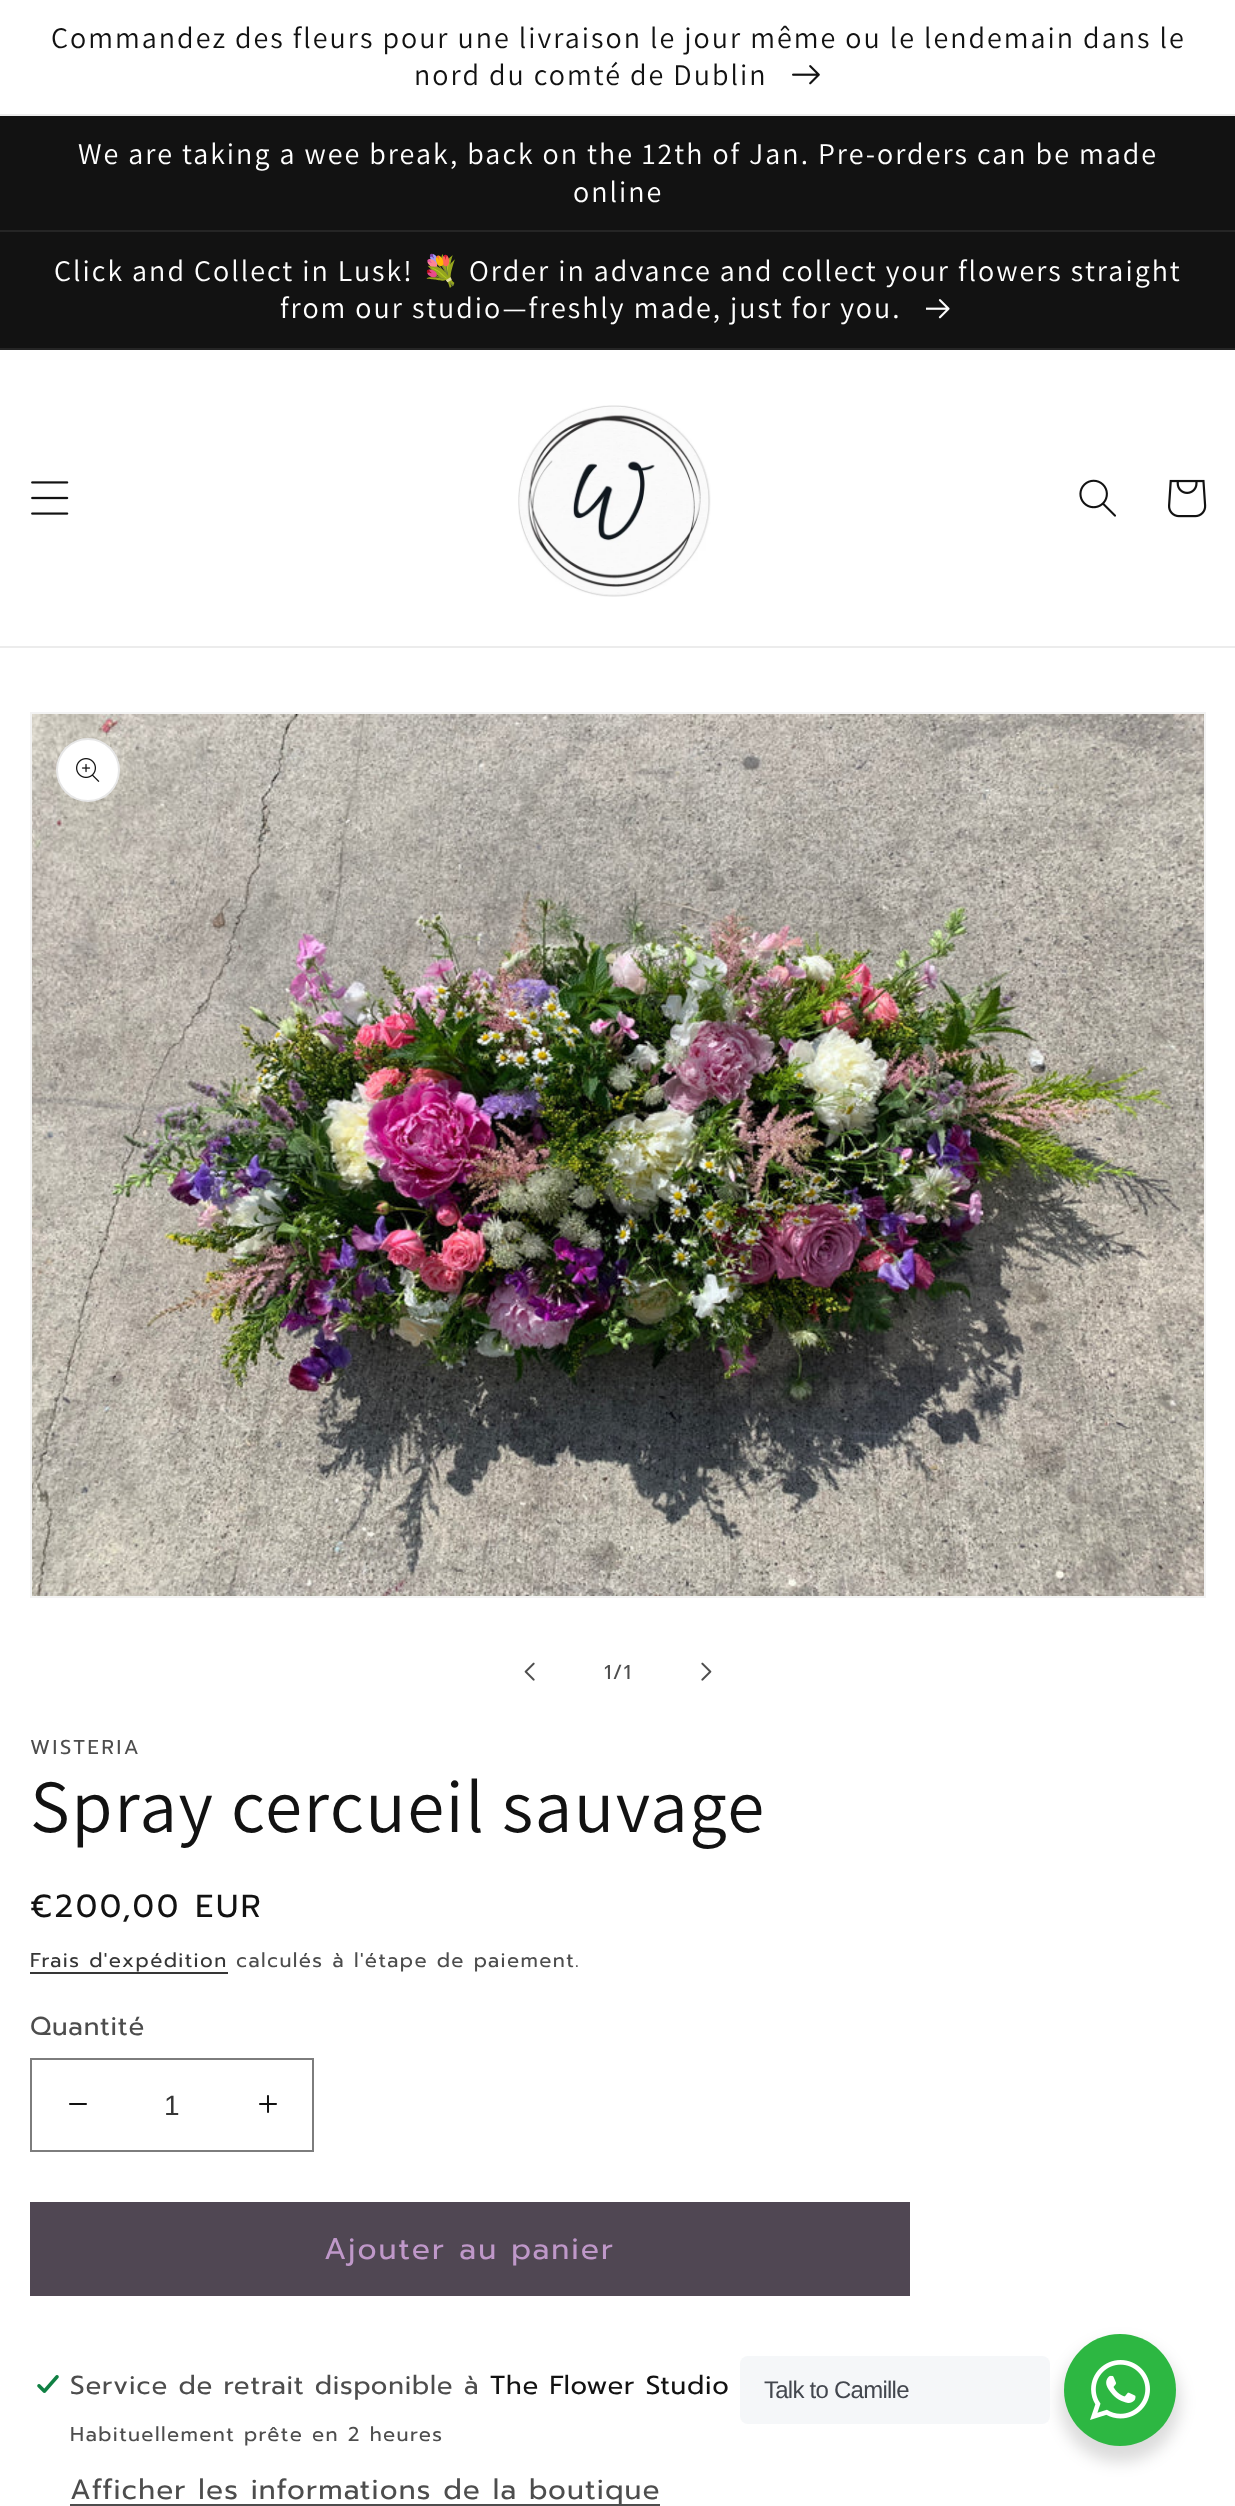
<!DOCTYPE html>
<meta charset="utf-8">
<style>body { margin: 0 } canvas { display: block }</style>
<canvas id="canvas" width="1235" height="2506"></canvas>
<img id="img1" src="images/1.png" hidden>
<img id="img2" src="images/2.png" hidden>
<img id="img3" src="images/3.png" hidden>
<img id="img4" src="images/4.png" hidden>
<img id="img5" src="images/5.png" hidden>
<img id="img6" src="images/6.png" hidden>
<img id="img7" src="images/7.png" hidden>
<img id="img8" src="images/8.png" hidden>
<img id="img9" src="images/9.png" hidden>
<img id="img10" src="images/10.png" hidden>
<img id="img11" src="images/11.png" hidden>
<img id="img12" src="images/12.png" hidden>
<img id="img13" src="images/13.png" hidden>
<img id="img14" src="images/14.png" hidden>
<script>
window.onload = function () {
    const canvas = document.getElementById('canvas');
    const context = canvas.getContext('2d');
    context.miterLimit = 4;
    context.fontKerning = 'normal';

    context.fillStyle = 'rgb(255, 255, 255)';
    context.fillRect(0, 0, 1235, 2506);
    context.fillStyle = 'rgb(236, 236, 236)';
    context.fillRect(0, 114, 1235, 2);
    context.drawImage(document.getElementById('img1'), 792, 65, 28, 20);
    context.fillStyle = 'rgb(18, 18, 18)';
    context.fillRect(0, 116, 1235, 114);
    context.fillStyle = 'rgb(37, 37, 37)';
    context.fillRect(0, 230, 1235, 2);
    context.fillStyle = 'rgb(18, 18, 18)';
    context.fillRect(0, 232, 1235, 116);
    context.fillStyle = 'rgb(37, 37, 37)';
    context.fillRect(0, 348, 1235, 2);
    context.drawImage(document.getElementById('img2'), 926, 299, 24, 20);
    context.fillStyle = 'rgb(236, 236, 236)';
    context.fillRect(0, 646, 1235, 2);
    context.drawImage(document.getElementById('img3'), 31, 481, 38, 34);
    context.drawImage(document.getElementById('img4'), 518, 405, 193, 192);
    context.drawImage(document.getElementById('img5'), 1079, 479, 37, 38);
    context.drawImage(document.getElementById('img6'), 1168, 479, 39, 39);
    context.strokeStyle = 'rgb(243, 243, 243)';
    context.lineWidth = 2;
    context.strokeRect(31, 713, 1174, 884);
    context.drawImage(document.getElementById('img7'), 32, 714, 1172, 882);
    context.fillStyle = 'rgb(255, 255, 255)';
    context.beginPath();
    context.arc(88, 770, 32, 0, 2 * Math.PI);
    context.fill();
    context.beginPath();
    context.arc(88, 770, 31, 0, 2 * Math.PI);
    context.strokeStyle = 'rgba(18, 18, 18, 0.1)';
    context.stroke();
    context.drawImage(document.getElementById('img8'), 76, 758, 24, 24);
    context.drawImage(document.getElementById('img9'), 524, 1662, 11, 19);
    context.drawImage(document.getElementById('img10'), 701, 1662, 11, 19);
    context.fillStyle = 'rgb(54, 54, 54)';
    context.fillRect(30, 1972, 198, 2);
    context.drawImage(document.getElementById('img11'), 69, 2103, 18, 2);
    context.drawImage(document.getElementById('img12'), 259, 2095, 18, 18);
    context.strokeStyle = 'rgb(125, 125, 125)';
    context.strokeRect(31, 2059, 282, 92);
    context.fillStyle = 'rgb(80, 71, 83)';
    context.fillRect(30, 2202, 880, 94);
    context.drawImage(document.getElementById('img13'), 37, 2375, 22, 18);
    context.fillStyle = 'rgb(77, 77, 77)';
    context.fillRect(70, 2504, 590, 2);
    context.fillStyle = 'rgba(0, 0, 0, 0.14)';
    context.filter = 'blur(8px)';
    context.beginPath();
    context.roundRect(1060, 2342, 120, 120, 60);
    context.fill();
    context.filter = 'none';
    context.fillStyle = 'rgb(245, 247, 249)';
    context.beginPath();
    context.roundRect(740, 2356, 310, 68, 8);
    context.fill();
    context.fillStyle = 'rgb(45, 183, 66)';
    context.beginPath();
    context.arc(1120, 2390, 56, 0, 2 * Math.PI);
    context.fill();
    context.drawImage(document.getElementById('img14'), 1090, 2360, 60, 60);
    context.letterSpacing = '2px';
    context.font = '30px Assistant';
    context.fillStyle = 'rgb(18, 18, 18)';
    context.fillText('Commandez des fleurs pour une livraison le jour même ou le lendemain dans le', 51, 48);
    context.fillText('nord du comté de Dublin', 414, 85);
    context.fillStyle = 'rgb(255, 255, 255)';
    context.fillText('We are taking a wee break, back on the 12th of Jan. Pre-orders can be made', 78, 164);
    context.fillText('online', 573, 202);
    context.fillText('Click and Collect in Lusk!', 54, 281);
    context.font = '30px Noto Color Emoji';
    context.fillText('💐', 422, 281);
    context.font = '30px Assistant';
    context.fillText('Order in advance and collect your flowers straight', 469, 281);
    context.fillText('from our studio—freshly made, just for you.', 280, 318);
    context.letterSpacing = '1.4px';
    context.font = '20px Prompt';
    context.fillStyle = 'rgb(77, 77, 77)';
    context.fillText('1/1', 604, 1679);
    context.letterSpacing = '2.6px';
    context.fillText('WISTERIA', 30, 1754);
    context.letterSpacing = '1.5px';
    context.font = '75px Assistant';
    context.fillStyle = 'rgb(18, 18, 18)';
    context.fillText('Spray cercueil sauvage', 30, 1832);
    context.letterSpacing = '2.6px';
    context.font = '32px Prompt';
    context.fillText('€200,00 EUR', 30, 1917);
    context.letterSpacing = '1.4px';
    context.font = '20px Prompt';
    context.fillStyle = 'rgb(54, 54, 54)';
    context.fillText('Frais d\'expédition', 30, 1967);
    context.fillStyle = 'rgb(77, 77, 77)';
    context.fillText('calculés à l\'étape de paiement.', 236, 1967);
    context.letterSpacing = '0.8px';
    context.font = '26px Prompt';
    context.fillText('Quantité', 30, 2035);
    context.letterSpacing = '0px';
    context.font = '28px Liberation Sans';
    context.fillStyle = 'rgb(54, 54, 54)';
    context.fillText('1', 164, 2115);
    context.letterSpacing = '2px';
    context.font = '30px Prompt';
    context.fillStyle = 'rgb(191, 152, 201)';
    context.fillText('Ajouter au panier', 324, 2259);
    context.letterSpacing = '0.8px';
    context.font = '26px Prompt';
    context.fillStyle = 'rgb(77, 77, 77)';
    context.fillText('Service de retrait disponible à', 70, 2394);
    context.fillStyle = 'rgb(18, 18, 18)';
    context.fillText('The Flower Studio', 490, 2394);
    context.letterSpacing = '1.4px';
    context.font = '20px Prompt';
    context.fillStyle = 'rgb(77, 77, 77)';
    context.fillText('Habituellement prête en 2 heures', 70, 2441);
    context.letterSpacing = '1.2px';
    context.font = '28px Prompt';
    context.fillText('Afficher les informations de la boutique', 70, 2499);
    context.letterSpacing = '-0.75px';
    context.font = '24px Liberation Sans';
    context.fillStyle = 'rgb(67, 71, 78)';
    context.fillText('Talk to Camille', 764, 2398);
};
</script>
